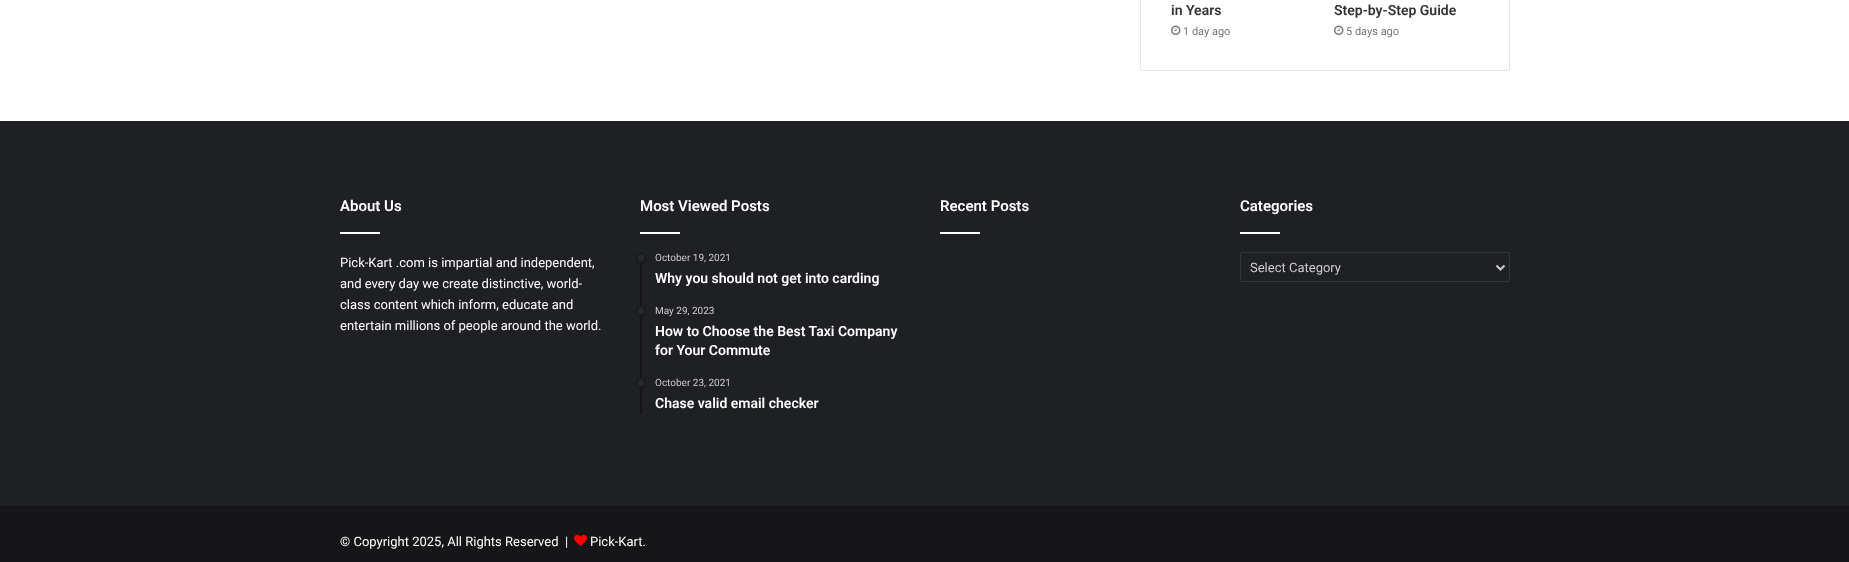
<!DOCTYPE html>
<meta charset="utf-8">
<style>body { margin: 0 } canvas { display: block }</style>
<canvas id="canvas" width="1849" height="562"></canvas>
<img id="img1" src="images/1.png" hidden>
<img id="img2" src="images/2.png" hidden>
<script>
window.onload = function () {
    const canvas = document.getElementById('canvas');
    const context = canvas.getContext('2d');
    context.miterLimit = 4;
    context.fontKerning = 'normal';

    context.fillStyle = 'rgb(255, 255, 255)';
    context.fillRect(0, 0, 1849, 562);
    context.beginPath();
    context.roundRect(1140.5, -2.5, 369, 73, 1.5);
    context.strokeStyle = 'rgb(230, 230, 230)';
    context.stroke();
    context.drawImage(document.getElementById('img1'), 1171, 25, 10, 10);
    context.drawImage(document.getElementById('img1'), 1334, 25, 10, 10);
    context.fillStyle = 'rgb(31, 32, 36)';
    context.fillRect(0, 121, 1849, 385);
    context.fillStyle = 'rgb(255, 255, 255)';
    context.fillRect(340, 232, 40, 2);
    context.fillRect(640, 232, 40, 2);
    context.fillStyle = 'rgb(22, 22, 25)';
    context.fillRect(640, 252, 2, 162);
    context.fillStyle = 'rgb(39, 41, 45)';
    context.beginPath();
    context.arc(641, 258, 4.5, 0, 2 * Math.PI);
    context.fill();
    context.strokeStyle = 'rgb(27, 28, 31)';
    context.lineWidth = 3;
    context.stroke();
    context.beginPath();
    context.arc(641, 311, 4.5, 0, 2 * Math.PI);
    context.fill();
    context.stroke();
    context.beginPath();
    context.arc(641, 383, 4.5, 0, 2 * Math.PI);
    context.fill();
    context.stroke();
    context.fillStyle = 'rgb(255, 255, 255)';
    context.fillRect(940, 232, 40, 2);
    context.fillRect(1240, 232, 40, 2);
    context.beginPath();
    context.roundRect(1240.5, 252.5, 269, 29, 1.5);
    context.strokeStyle = 'rgb(53, 54, 58)';
    context.lineWidth = 1;
    context.stroke();
    context.beginPath();
    context.moveTo(1496.5, 265.5);
    context.lineTo(1500.5, 269.5);
    context.lineTo(1504.5, 265.5);
    context.strokeStyle = 'rgb(204, 204, 204)';
    context.lineWidth = 2;
    context.stroke();
    context.fillStyle = 'rgb(22, 22, 25)';
    context.fillRect(0, 506, 1849, 56);
    context.drawImage(document.getElementById('img2'), 574, 534, 13, 12);
    context.font = '600 14px Roboto';
    context.fillStyle = 'rgb(51, 51, 51)';
    context.fillText('in Years', 1171, 15);
    context.font = '11px Roboto';
    context.fillStyle = 'rgb(118, 118, 118)';
    context.fillText('1 day ago', 1183, 35);
    context.font = '600 14px Roboto';
    context.fillStyle = 'rgb(51, 51, 51)';
    context.fillText('Step-by-Step Guide', 1334, 15);
    context.font = '11px Roboto';
    context.fillStyle = 'rgb(118, 118, 118)';
    context.fillText('5 days ago', 1346, 35);
    context.font = '600 15px Roboto';
    context.fillStyle = 'rgb(255, 255, 255)';
    context.fillText('About Us', 340, 211);
    context.font = '13px Roboto';
    context.fillText('Pick-Kart .com is impartial and independent,', 340, 267);
    context.fillText('and every day we create distinctive, world-', 340, 288);
    context.fillText('class content which inform, educate and', 340, 309);
    context.fillText('entertain millions of people around the world.', 340, 330);
    context.font = '600 15px Roboto';
    context.fillText('Most Viewed Posts', 640, 211);
    context.font = '10px Roboto';
    context.fillStyle = 'rgb(204, 204, 204)';
    context.fillText('October 19, 2021', 655, 261);
    context.font = '600 14px Roboto';
    context.fillStyle = 'rgb(255, 255, 255)';
    context.fillText('Why you should not get into carding', 655, 283);
    context.font = '10px Roboto';
    context.fillStyle = 'rgb(204, 204, 204)';
    context.fillText('May 29, 2023', 655, 314);
    context.font = '600 14px Roboto';
    context.fillStyle = 'rgb(255, 255, 255)';
    context.fillText('How to Choose the Best Taxi Company', 655, 336);
    context.fillText('for Your Commute', 655, 355);
    context.font = '10px Roboto';
    context.fillStyle = 'rgb(204, 204, 204)';
    context.fillText('October 23, 2021', 655, 386);
    context.font = '600 14px Roboto';
    context.fillStyle = 'rgb(255, 255, 255)';
    context.fillText('Chase valid email checker', 655, 408);
    context.font = '600 15px Roboto';
    context.fillText('Recent Posts', 940, 211);
    context.fillText('Categories', 1240, 211);
    context.font = '13px Roboto';
    context.fillStyle = 'rgb(204, 204, 204)';
    context.fillText('Select Category', 1250, 272);
    context.fillStyle = 'rgb(255, 255, 255)';
    context.fillText('© Copyright 2025, All Rights Reserved  |', 340, 546);
    context.fillText('Pick-Kart.', 590, 546);
};
</script>
